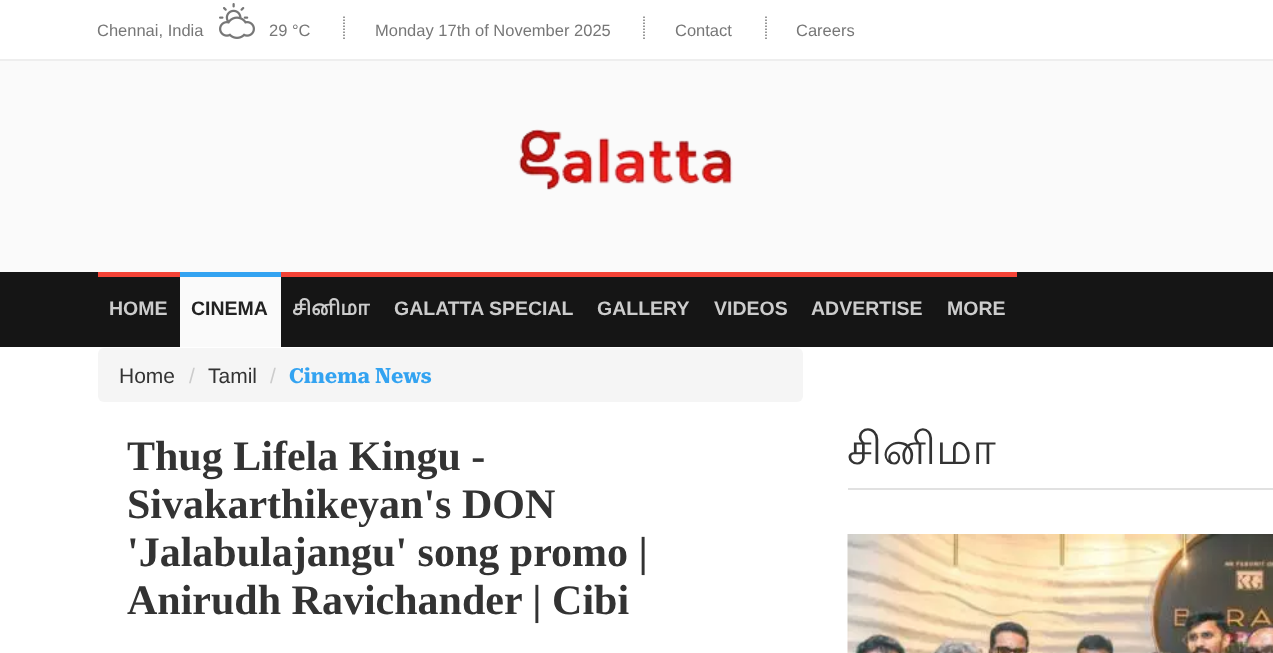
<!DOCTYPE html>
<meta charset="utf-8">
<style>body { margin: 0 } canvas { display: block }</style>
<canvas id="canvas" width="1273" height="653"></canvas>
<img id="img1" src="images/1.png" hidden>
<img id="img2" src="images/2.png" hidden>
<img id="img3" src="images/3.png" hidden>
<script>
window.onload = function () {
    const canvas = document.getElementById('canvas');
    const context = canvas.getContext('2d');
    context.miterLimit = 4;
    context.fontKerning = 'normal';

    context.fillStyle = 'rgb(255, 255, 255)';
    context.fillRect(0, 0, 1273, 653);
    context.fillStyle = 'rgb(250, 250, 250)';
    context.fillRect(0, 61, 1273, 211);
    context.fillStyle = 'rgb(238, 238, 238)';
    context.fillRect(0, 59, 1273, 2);
    context.drawImage(document.getElementById('img1'), 219, 3, 36, 36);
    context.beginPath();
    context.moveTo(344, 16.5);
    context.lineTo(344, 40.5);
    context.strokeStyle = 'rgb(119, 119, 119)';
    context.lineWidth = 1.5;
    context.setLineDash([1.5, 1.5]);
    context.stroke();
    context.beginPath();
    context.moveTo(644, 16.5);
    context.lineTo(644, 40.5);
    context.stroke();
    context.beginPath();
    context.moveTo(766, 16.5);
    context.lineTo(766, 40.5);
    context.stroke();
    context.drawImage(document.getElementById('img2'), 518, 129, 215, 61);
    context.fillStyle = 'rgb(21, 21, 21)';
    context.fillRect(0, 272, 1273, 75);
    context.fillStyle = 'rgb(244, 67, 54)';
    context.fillRect(98, 272, 82, 5);
    context.fillStyle = 'rgb(250, 250, 250)';
    context.fillRect(180, 277, 101, 70);
    context.fillStyle = 'rgb(51, 163, 241)';
    context.fillRect(180, 272, 101, 5);
    context.fillStyle = 'rgb(244, 67, 54)';
    context.fillRect(281, 272, 736, 5);
    context.fillStyle = 'rgb(245, 245, 245)';
    context.beginPath();
    context.roundRect(98, 348, 705, 54, 6);
    context.fill();
    context.fillStyle = 'rgb(225, 225, 225)';
    context.fillRect(848, 488, 425, 2);
    context.drawImage(document.getElementById('img3'), 847, 534, 426, 119);
    context.font = '16.5px Liberation Sans';
    context.fillStyle = 'rgb(119, 119, 119)';
    context.fillText('Chennai, India', 97, 36);
    context.fillText('29 °C', 269, 36);
    context.fillText('Monday 17th of November 2025', 375, 36);
    context.fillText('Contact', 675, 36);
    context.fillText('Careers', 796, 36);
    context.font = 'bold 19.5px Liberation Sans';
    context.fillStyle = 'rgb(204, 204, 204)';
    context.fillText('HOME', 109, 315);
    context.fillStyle = 'rgb(34, 34, 34)';
    context.fillText('CINEMA', 191, 315);
    context.font = 'bold 19.5px Noto Sans Tamil';
    context.fillStyle = 'rgb(204, 204, 204)';
    context.fillText('சினிமா', 292, 315);
    context.font = 'bold 19.5px Liberation Sans';
    context.fillText('GALATTA SPECIAL', 394, 315);
    context.fillText('GALLERY', 597, 315);
    context.fillText('VIDEOS', 714, 315);
    context.fillText('ADVERTISE', 811, 315);
    context.fillText('MORE', 947, 315);
    context.font = '21px Liberation Sans';
    context.fillStyle = 'rgb(51, 51, 51)';
    context.fillText('Home', 119, 383);
    context.fillStyle = 'rgb(204, 204, 204)';
    context.fillText('/', 189, 383);
    context.fillStyle = 'rgb(51, 51, 51)';
    context.fillText('Tamil', 208, 383);
    context.fillStyle = 'rgb(204, 204, 204)';
    context.fillText('/', 270, 383);
    context.font = 'bold 21px Roboto Serif';
    context.fillStyle = 'rgb(51, 163, 241)';
    context.fillText('Cinema News', 289, 383);
    context.font = 'bold 42px Liberation Serif';
    context.fillStyle = 'rgb(51, 51, 51)';
    context.fillText('Thug Lifela Kingu -', 127, 470);
    context.fillText('Sivakarthikeyan\'s DON', 127, 518);
    context.fillText('\'Jalabulajangu\' song promo |', 127, 566);
    context.fillText('Anirudh Ravichander | Cibi', 127, 614);
    context.font = '45px Lohit Tamil';
    context.fillText('சினிமா', 847, 464);
};
</script>
